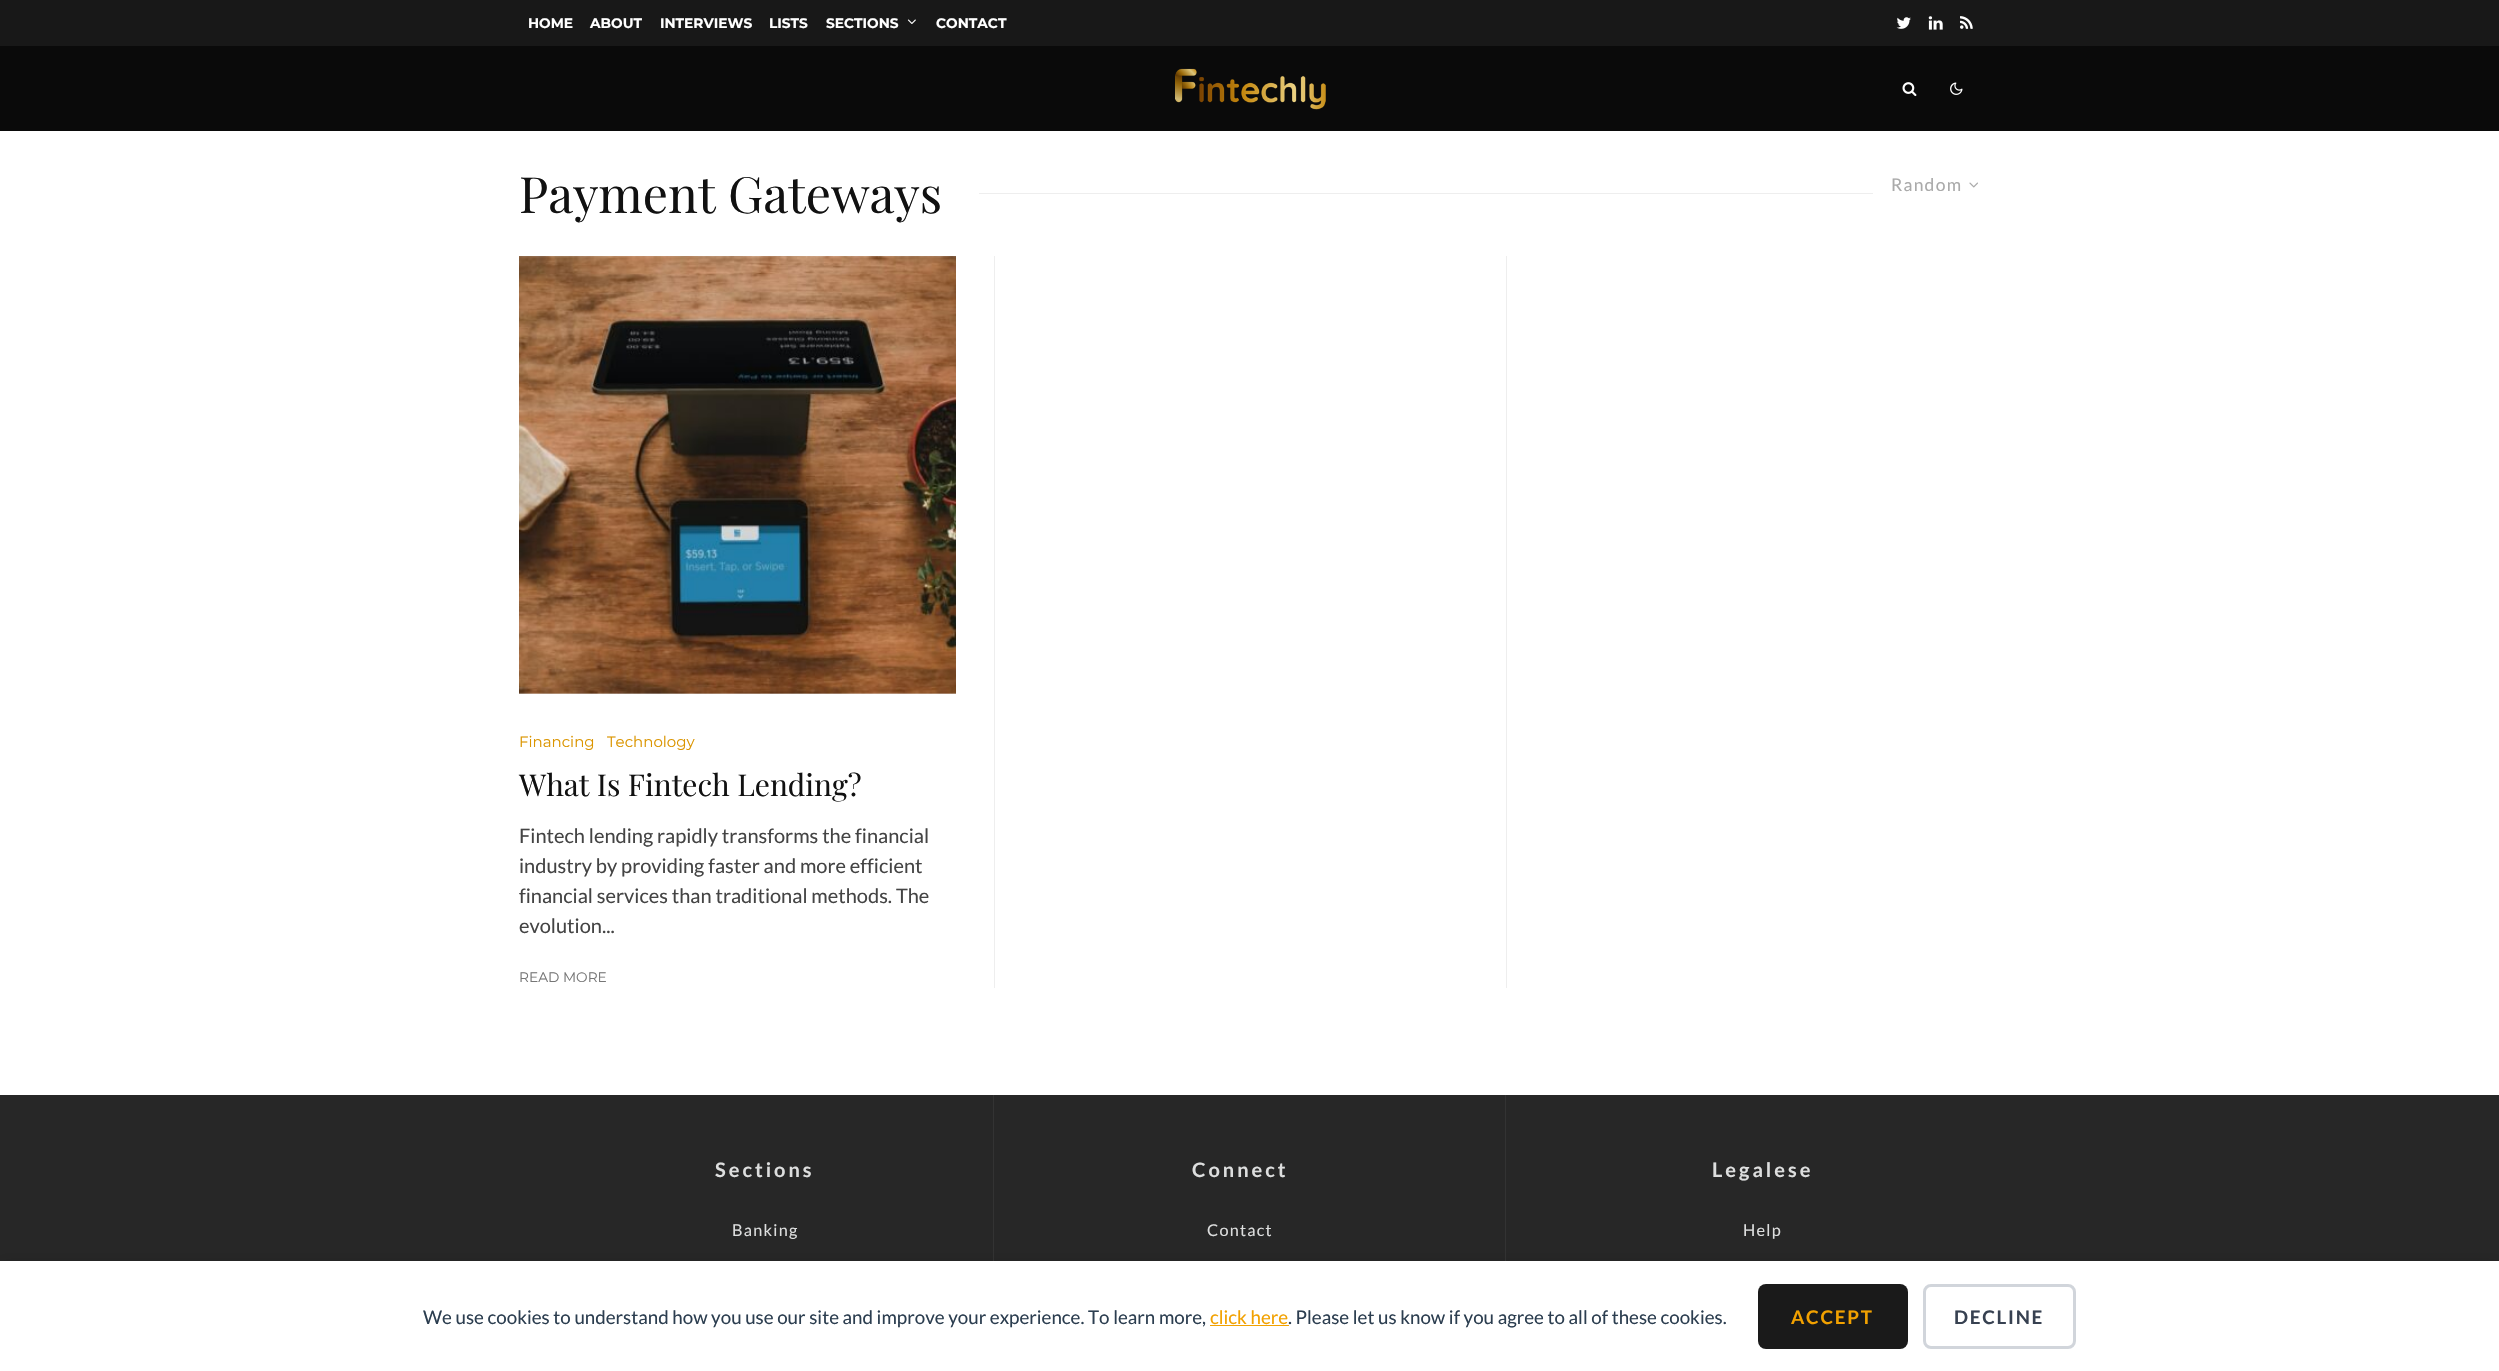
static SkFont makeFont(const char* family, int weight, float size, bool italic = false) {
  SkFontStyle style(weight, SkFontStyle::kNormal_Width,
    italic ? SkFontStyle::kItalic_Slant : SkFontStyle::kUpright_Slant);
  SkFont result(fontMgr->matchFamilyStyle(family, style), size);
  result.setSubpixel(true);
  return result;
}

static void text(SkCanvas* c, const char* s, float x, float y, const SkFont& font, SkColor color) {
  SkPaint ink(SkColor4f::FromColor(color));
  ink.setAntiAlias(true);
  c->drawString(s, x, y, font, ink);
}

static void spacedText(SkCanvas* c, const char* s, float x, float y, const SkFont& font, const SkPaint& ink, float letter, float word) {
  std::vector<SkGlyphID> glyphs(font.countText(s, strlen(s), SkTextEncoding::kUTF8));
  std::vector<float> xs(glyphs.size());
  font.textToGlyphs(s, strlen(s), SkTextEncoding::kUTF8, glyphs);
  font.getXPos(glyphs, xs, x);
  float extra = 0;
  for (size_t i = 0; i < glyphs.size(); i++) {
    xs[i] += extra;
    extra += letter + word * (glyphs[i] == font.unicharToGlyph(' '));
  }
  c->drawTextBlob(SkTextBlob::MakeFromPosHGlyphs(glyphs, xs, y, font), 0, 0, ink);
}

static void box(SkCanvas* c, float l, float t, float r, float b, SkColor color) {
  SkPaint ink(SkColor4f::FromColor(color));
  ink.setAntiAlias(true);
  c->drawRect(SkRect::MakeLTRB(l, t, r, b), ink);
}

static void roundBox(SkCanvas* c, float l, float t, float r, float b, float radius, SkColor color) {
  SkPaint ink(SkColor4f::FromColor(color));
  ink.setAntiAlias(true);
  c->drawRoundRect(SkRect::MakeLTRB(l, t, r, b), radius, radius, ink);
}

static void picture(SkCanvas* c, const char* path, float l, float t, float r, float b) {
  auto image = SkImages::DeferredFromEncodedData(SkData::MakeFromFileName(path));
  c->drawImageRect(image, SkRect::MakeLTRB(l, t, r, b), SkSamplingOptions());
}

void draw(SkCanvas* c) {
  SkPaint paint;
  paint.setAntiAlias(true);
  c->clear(0xffffffff);
  box(c, 0, 0, 2499, 46, 0xff181818);
  SkFont face1 = makeFont("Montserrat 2", 100, 13.75f);
  text(c, "HOME", 528, 28, face1, 0xffffffff);
  text(c, "ABOUT", 590, 28, face1, 0xffffffff);
  text(c, "INTERVIEWS", 660, 28, face1, 0xffffffff);
  text(c, "LISTS", 769, 28, face1, 0xffffffff);
  text(c, "SECTIONS", 826, 28, face1, 0xffffffff);
  picture(c, "img_01.png", 907, 19, 916, 24);
  text(c, "CONTACT", 936, 28, face1, 0xffffffff);
  picture(c, "img_02.png", 1896, 17, 1911, 29);
  picture(c, "img_03.png", 1928, 16, 1943, 30);
  picture(c, "img_04.png", 1960, 16, 1973, 29);
  box(c, 0, 46, 2499, 131, 0xff0a0a0a);
  picture(c, "img_05.png", 1175, 68, 1326, 110);
  picture(c, "img_06.png", 1902, 82, 1917, 97);
  picture(c, "img_07.png", 1950, 82, 1963, 95);
  SkFont face2 = makeFont("Playfair Display", 400, 50);
  text(c, "Payment Gateways", 519, 213, face2, 0xff111111);
  box(c, 979, 193, 1873, 194, 0xffeeeeee);
  SkFont face3 = makeFont("Lato", 400, 17.5f);
  paint.setColor(0xffaaaaaa);
  spacedText(c, "Random", 1891, 191, face3, paint, 1.25f, 0);
  picture(c, "img_08.png", 1969, 182, 1978, 188);
  box(c, 519, 256, 956, 694, 0xffeeeeee);
  picture(c, "img_09.png", 519, 256, 956, 694);
  SkFont face4 = makeFont("Montserrat", 100, 15);
  text(c, "Financing", 519, 747, face4, 0xffdb9500);
  text(c, "Technology", 607, 747, face4, 0xffdb9500);
  SkFont face5 = makeFont("Playfair Display", 400, 30);
  text(c, "What Is Fintech Lending?", 519, 796, face5, 0xff111111);
  SkFont face6 = makeFont("Lato", 400, 20);
  text(c, "Fintech lending rapidly transforms the financial", 519, 843, face6, 0xff444444);
  text(c, "industry by providing faster and more efficient", 519, 873, face6, 0xff444444);
  text(c, "financial services than traditional methods. The", 519, 903, face6, 0xff444444);
  text(c, "evolution...", 519, 933, face6, 0xff444444);
  SkFont face7 = makeFont("Montserrat", 100, 13.75f);
  text(c, "READ MORE", 519, 982, face7, 0xff767676);
  box(c, 994, 256, 995, 988, 0xffeeeeee);
  box(c, 1506, 256, 1507, 988, 0xffeeeeee);
  box(c, 0, 1095, 2499, 1261, 0xff272727);
  box(c, 993, 1095, 994, 1261, 0xff333333);
  SkFont face8 = makeFont("Lato", 700, 20);
  paint.setColor(0xffdddede);
  spacedText(c, "Sections", 715, 1177, face8, paint, 3, 0);
  SkFont face9 = makeFont("Lato", 400, 16.25f);
  spacedText(c, "Banking", 732, 1236, face9, paint, 1.25f, 0);
  box(c, 1505, 1095, 1506, 1261, 0xff333333);
  spacedText(c, "Connect", 1192, 1177, face8, paint, 3, 0);
  spacedText(c, "Contact", 1207, 1236, face9, paint, 1.25f, 0);
  spacedText(c, "Legalese", 1712, 1177, face8, paint, 3, 0);
  spacedText(c, "Help", 1743, 1236, face9, paint, 1.25f, 0);
  paint.setColor(0x14000000);
  paint.setMaskFilter(SkMaskFilter::MakeBlur(kNormal_SkBlurStyle, 6));
  c->drawRect(SkRect::MakeLTRB(0, 1259, 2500, 1369), paint);
  paint.setMaskFilter(nullptr);
  box(c, 0, 1261, 2499, 1371, 0xffffffff);
  SkFont face10 = makeFont("Lato", 400, 18.75f);
  text(c, "We use cookies to understand how you use our site and improve your experience. To learn more,", 423, 1324, face10, 0xff2c3e50);
  text(c, "click here", 1210, 1324, face10, 0xfff2a100);
  box(c, 1210, 1325, 1289, 1326, 0xfff2a100);
  text(c, ". Please let us know if you agree to all of these cookies.", 1288, 1324, face10, 0xff2c3e50);
  roundBox(c, 1758, 1284, 1908, 1349, 8, 0xff1a1a1a);
  SkFont face11 = makeFont("Lato", 700, 18.75f);
  paint.setColor(0xfff2a100);
  spacedText(c, "ACCEPT", 1791, 1324, face11, paint, 1.75f, 0);
  paint.setStyle(SkPaint::kStroke_Style);
  paint.setStrokeWidth(3);
  paint.setColor(0xffd1d5db);
  c->drawRoundRect(SkRect::MakeLTRB(1924.5f, 1285.5f, 2074.5f, 1347.5f), 6.5f, 6.5f, paint);
  paint.setStyle(SkPaint::kFill_Style);
  paint.setColor(0xff374151);
  spacedText(c, "DECLINE", 1954, 1324, face11, paint, 1.75f, 0);
}
